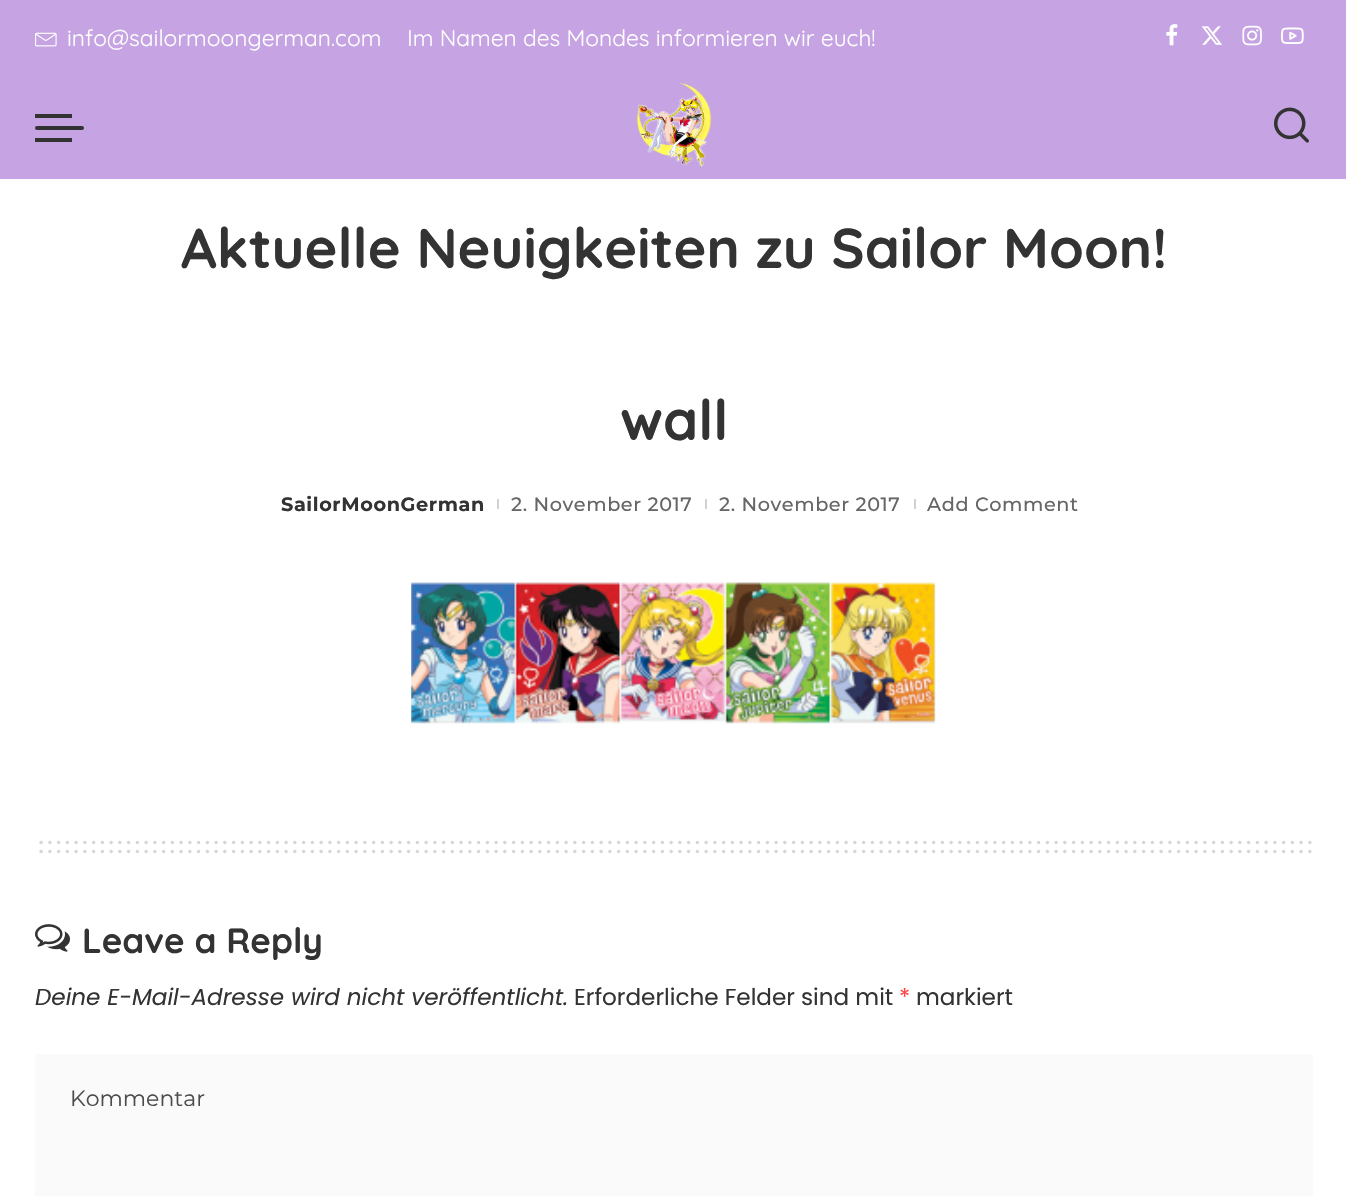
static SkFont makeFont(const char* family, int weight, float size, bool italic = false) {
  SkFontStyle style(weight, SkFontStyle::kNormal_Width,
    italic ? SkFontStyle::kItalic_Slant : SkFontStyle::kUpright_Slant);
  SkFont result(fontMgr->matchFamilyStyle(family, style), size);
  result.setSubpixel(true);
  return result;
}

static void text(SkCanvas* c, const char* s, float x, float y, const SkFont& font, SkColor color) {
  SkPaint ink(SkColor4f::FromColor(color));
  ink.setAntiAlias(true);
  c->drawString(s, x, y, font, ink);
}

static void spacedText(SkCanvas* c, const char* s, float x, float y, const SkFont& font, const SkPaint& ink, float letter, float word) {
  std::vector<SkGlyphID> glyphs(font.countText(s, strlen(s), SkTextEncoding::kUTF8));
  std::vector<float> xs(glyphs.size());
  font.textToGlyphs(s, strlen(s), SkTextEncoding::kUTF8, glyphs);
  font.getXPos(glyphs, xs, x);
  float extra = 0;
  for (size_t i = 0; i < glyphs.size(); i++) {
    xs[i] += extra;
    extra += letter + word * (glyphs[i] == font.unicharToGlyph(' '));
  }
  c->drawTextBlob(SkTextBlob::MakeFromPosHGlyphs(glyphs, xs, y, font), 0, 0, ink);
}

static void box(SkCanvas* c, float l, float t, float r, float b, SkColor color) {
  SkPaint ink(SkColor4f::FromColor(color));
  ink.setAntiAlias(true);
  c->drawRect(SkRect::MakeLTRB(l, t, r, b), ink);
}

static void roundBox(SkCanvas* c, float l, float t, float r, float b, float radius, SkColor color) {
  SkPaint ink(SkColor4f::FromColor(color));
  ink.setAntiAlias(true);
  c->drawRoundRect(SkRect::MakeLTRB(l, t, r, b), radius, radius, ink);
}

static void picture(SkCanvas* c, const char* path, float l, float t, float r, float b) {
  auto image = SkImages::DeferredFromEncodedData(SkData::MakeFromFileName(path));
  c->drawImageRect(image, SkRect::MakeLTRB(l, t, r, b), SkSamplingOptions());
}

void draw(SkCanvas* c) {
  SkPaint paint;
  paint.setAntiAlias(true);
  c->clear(0xffffffff);
  box(c, 0, 0, 1346, 179, 0xffc6a3e2);
  picture(c, "img_01.png", 35, 32, 57, 47);
  SkFont face1 = makeFont("Quicksand", 400, 22.75f);
  text(c, "info@sailormoongerman.com", 67, 46, face1, 0xffffffff);
  text(c, "Im Namen des Mondes informieren wir euch!", 407, 46, face1, 0xffffffff);
  picture(c, "img_02.png", 1166, 24, 1178, 46);
  picture(c, "img_03.png", 1201, 26, 1222, 45);
  picture(c, "img_04.png", 1242, 25, 1262, 46);
  picture(c, "img_05.png", 1281, 27, 1304, 44);
  roundBox(c, 35, 126, 84, 130, 2, 0xff333333);
  box(c, 35, 114, 72, 118, 0xff333333);
  box(c, 35, 138, 72, 142, 0xff333333);
  picture(c, "img_06.png", 636, 83, 712, 168);
  picture(c, "img_07.png", 1274, 107, 1309, 143);
  SkFont face2 = makeFont("Quicksand", 700, 56);
  text(c, "Aktuelle Neuigkeiten zu Sailor Moon!", 181, 268, face2, 0xff333333);
  text(c, "wall", 620, 440, face2, 0xff333333);
  SkFont face3 = makeFont("Montserrat", 700, 19.25f);
  paint.setColor(0xff333333);
  spacedText(c, "SailorMoonGerman", 281, 511, face3, paint, 0.6f, 0);
  box(c, 497, 499, 499, 509, 0xffd1d1d1);
  SkFont face4 = makeFont("Montserrat", 500, 19.25f);
  paint.setColor(0xff666666);
  spacedText(c, "2. November 2017", 511, 511, face4, paint, 0.6f, 0);
  box(c, 705, 499, 707, 509, 0xffd1d1d1);
  spacedText(c, "2. November 2017", 719, 511, face4, paint, 0.6f, 0);
  box(c, 914, 499, 916, 509, 0xffd1d1d1);
  spacedText(c, "Add Comment", 927, 511, face4, paint, 0.6f, 0);
  picture(c, "img_08.png", 411, 582, 936, 724);
  paint.setStyle(SkPaint::kStroke_Style);
  paint.setStrokeWidth(3.5f);
  paint.setStrokeCap(SkPaint::kRound_Cap);
  paint.setColor(0xffd6d6d6);
  paint.setPathEffect(SkDashPathEffect::Make({{0, 8.75f}}, 0));
  c->drawPath(SkPathBuilder().moveTo(41.1f, 842.6f).lineTo(1310.2f, 842.6f).detach(), paint);
  paint.setPathEffect(nullptr);
  paint.setPathEffect(SkDashPathEffect::Make({{0, 8.75f}}, 0));
  c->drawPath(SkPathBuilder().moveTo(41.1f, 851.4f).lineTo(1310.2f, 851.4f).detach(), paint);
  paint.setPathEffect(nullptr);
  picture(c, "img_09.png", 35, 924, 70, 952);
  SkFont face5 = makeFont("Quicksand", 700, 35);
  text(c, "Leave a Reply", 82, 953, face5, 0xff333333);
  SkFont face6 = makeFont("Poppins", 400, 23.1f, true);
  text(c, "Deine E-Mail-Adresse wird nicht veröffentlicht.", 35, 1005, face6, 0xff333333);
  SkFont face7 = makeFont("Poppins", 400, 23.1f);
  text(c, "Erforderliche Felder sind mit", 574, 1005, face7, 0xff333333);
  text(c, "*", 899, 1005, face7, 0xffff4545);
  text(c, "markiert", 916, 1005, face7, 0xff333333);
  box(c, 35, 1054, 1313, 1196, 0xfffafafa);
  SkFont face8 = makeFont("Montserrat", 400, 22);
  text(c, "Kommentar", 70, 1106, face8, 0xff4b4b4b);
}
